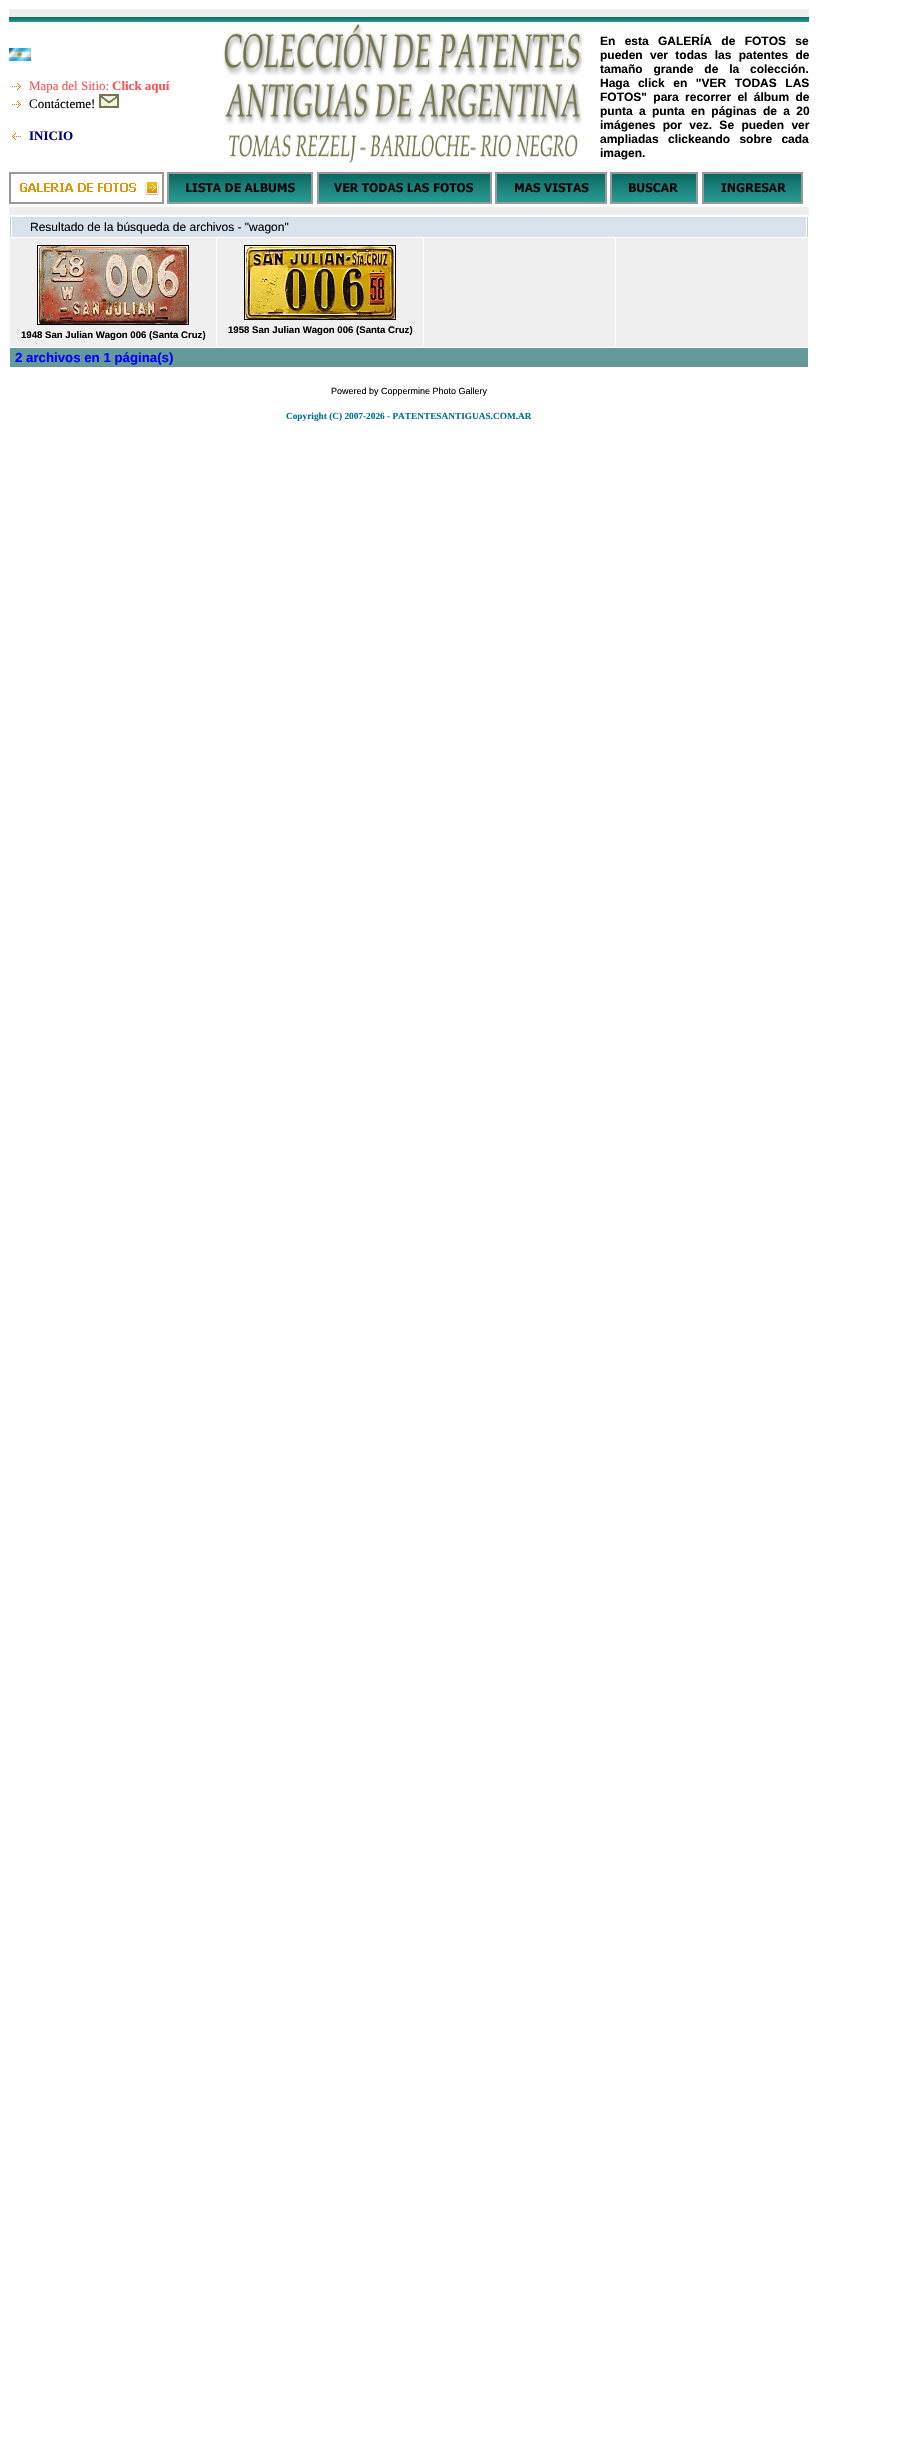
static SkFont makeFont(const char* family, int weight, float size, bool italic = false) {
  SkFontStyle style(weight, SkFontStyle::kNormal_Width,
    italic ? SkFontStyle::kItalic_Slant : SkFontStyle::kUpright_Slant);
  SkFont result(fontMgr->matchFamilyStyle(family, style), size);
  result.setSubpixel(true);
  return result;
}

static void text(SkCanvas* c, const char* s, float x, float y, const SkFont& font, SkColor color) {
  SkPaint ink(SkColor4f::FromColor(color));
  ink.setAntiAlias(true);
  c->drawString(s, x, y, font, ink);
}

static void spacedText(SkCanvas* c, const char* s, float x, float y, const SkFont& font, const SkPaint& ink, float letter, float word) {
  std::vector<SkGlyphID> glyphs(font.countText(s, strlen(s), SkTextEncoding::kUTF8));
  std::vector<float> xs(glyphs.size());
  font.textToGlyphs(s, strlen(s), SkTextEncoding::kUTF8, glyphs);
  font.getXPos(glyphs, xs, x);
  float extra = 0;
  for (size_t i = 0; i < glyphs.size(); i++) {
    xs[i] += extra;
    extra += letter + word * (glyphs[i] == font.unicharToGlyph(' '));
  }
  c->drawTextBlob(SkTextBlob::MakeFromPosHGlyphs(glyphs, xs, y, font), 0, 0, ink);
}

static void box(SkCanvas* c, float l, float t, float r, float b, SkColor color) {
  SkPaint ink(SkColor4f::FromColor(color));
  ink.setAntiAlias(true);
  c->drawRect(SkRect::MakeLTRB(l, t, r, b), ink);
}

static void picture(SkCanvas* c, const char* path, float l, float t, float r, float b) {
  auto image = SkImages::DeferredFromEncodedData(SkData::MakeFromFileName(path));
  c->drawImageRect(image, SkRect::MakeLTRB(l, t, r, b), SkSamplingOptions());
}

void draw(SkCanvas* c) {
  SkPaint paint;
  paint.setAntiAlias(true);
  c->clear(0xffffffff);
  box(c, 9, 9, 809, 17, 0xffeeeeee);
  picture(c, "img_01.png", 9, 17, 809, 22);
  picture(c, "img_02.png", 9, 48, 31, 61);
  picture(c, "img_03.png", 12, 83, 21, 90);
  SkFont face1 = makeFont("Liberation Serif", 400, 13);
  text(c, "Mapa del Sitio:", 29, 90, face1, 0xffff5050);
  SkFont face2 = makeFont("Liberation Serif", 700, 13);
  text(c, "Click aquí", 112, 90, face2, 0xffff5050);
  picture(c, "img_03.png", 12, 101, 21, 108);
  text(c, "Contácteme!", 29, 108, face1, 0xff000000);
  picture(c, "img_04.png", 99, 94, 119, 108);
  picture(c, "img_05.png", 12, 133, 21, 140);
  text(c, "INICIO", 29, 140, face2, 0xff000080);
  picture(c, "img_06.png", 223, 24, 583, 163);
  SkFont face3 = makeFont("Liberation Sans", 700, 12);
  paint.setColor(0xff000000);
  spacedText(c, "En esta GALERÍA de FOTOS se", 600, 45, face3, paint, 0, 6);
  spacedText(c, "pueden ver todas las patentes de", 600, 59, face3, paint, 0, 4);
  spacedText(c, "tamaño grande de la colección.", 600, 73, face3, paint, 0, 7.5f);
  spacedText(c, "Haga click en \"VER TODAS LAS", 600, 87, face3, paint, 0, 5.25f);
  spacedText(c, "FOTOS\" para recorrer el álbum de", 600, 101, face3, paint, 0, 3);
  spacedText(c, "punta a punta en páginas de a 20", 600, 115, face3, paint, 0, 3);
  spacedText(c, "imágenes por vez. Se pueden ver", 600, 129, face3, paint, 0, 4);
  spacedText(c, "ampliadas clickeando sobre cada", 600, 143, face3, paint, 0, 6);
  text(c, "imagen.", 600, 157, face3, 0xff000000);
  picture(c, "img_07.png", 9, 172, 164, 204);
  picture(c, "img_08.png", 167, 172, 313, 204);
  picture(c, "img_09.png", 317, 172, 492, 204);
  picture(c, "img_10.png", 495, 172, 607, 204);
  picture(c, "img_11.png", 610, 172, 698, 204);
  picture(c, "img_12.png", 702, 172, 803, 204);
  box(c, 9, 207, 809, 215, 0xffeeeeee);
  picture(c, "img_13.png", 10, 217, 804, 237);
  picture(c, "img_14.png", 804, 217, 808, 237);
  SkFont face4 = makeFont("Liberation Sans", 400, 12);
  text(c, "Resultado de la búsqueda de archivos - \"wagon\"", 30, 231, face4, 0xff000000);
  box(c, 10, 238, 216, 347, 0xffefefef);
  paint.setStyle(SkPaint::kStroke_Style);
  paint.setStrokeWidth(1);
  c->drawRect(SkRect::MakeLTRB(37.5f, 245.5f, 188.5f, 324.5f), paint);
  picture(c, "img_15.png", 38, 246, 188, 324);
  SkFont face5 = makeFont("Liberation Sans", 700, 9.6f);
  text(c, "1948 San Julian Wagon 006 (Santa Cruz)", 21, 338, face5, 0xff000000);
  box(c, 217, 238, 423, 347, 0xffefefef);
  c->drawRect(SkRect::MakeLTRB(244.5f, 245.5f, 395.5f, 319.5f), paint);
  picture(c, "img_16.png", 245, 246, 395, 319);
  text(c, "1958 San Julian Wagon 006 (Santa Cruz)", 228, 333, face5, 0xff000000);
  box(c, 424, 238, 615, 347, 0xffefefef);
  box(c, 616, 238, 808, 347, 0xffefefef);
  box(c, 10, 348, 808, 367, 0xff669999);
  SkFont face6 = makeFont("Liberation Sans", 700, 13.25f);
  text(c, "2 archivos en 1 página(s)", 15, 362, face6, 0xff0000ff);
  SkFont face7 = makeFont("Liberation Sans", 400, 9);
  text(c, "Powered by Coppermine Photo Gallery", 331, 394, face7, 0xff000000);
  SkFont face8 = makeFont("Liberation Serif", 700, 9.3f);
  text(c, "Copyright (C) 2007-2026 - PATENTESANTIGUAS.COM.AR", 286, 419, face8, 0xff006f92);
}
